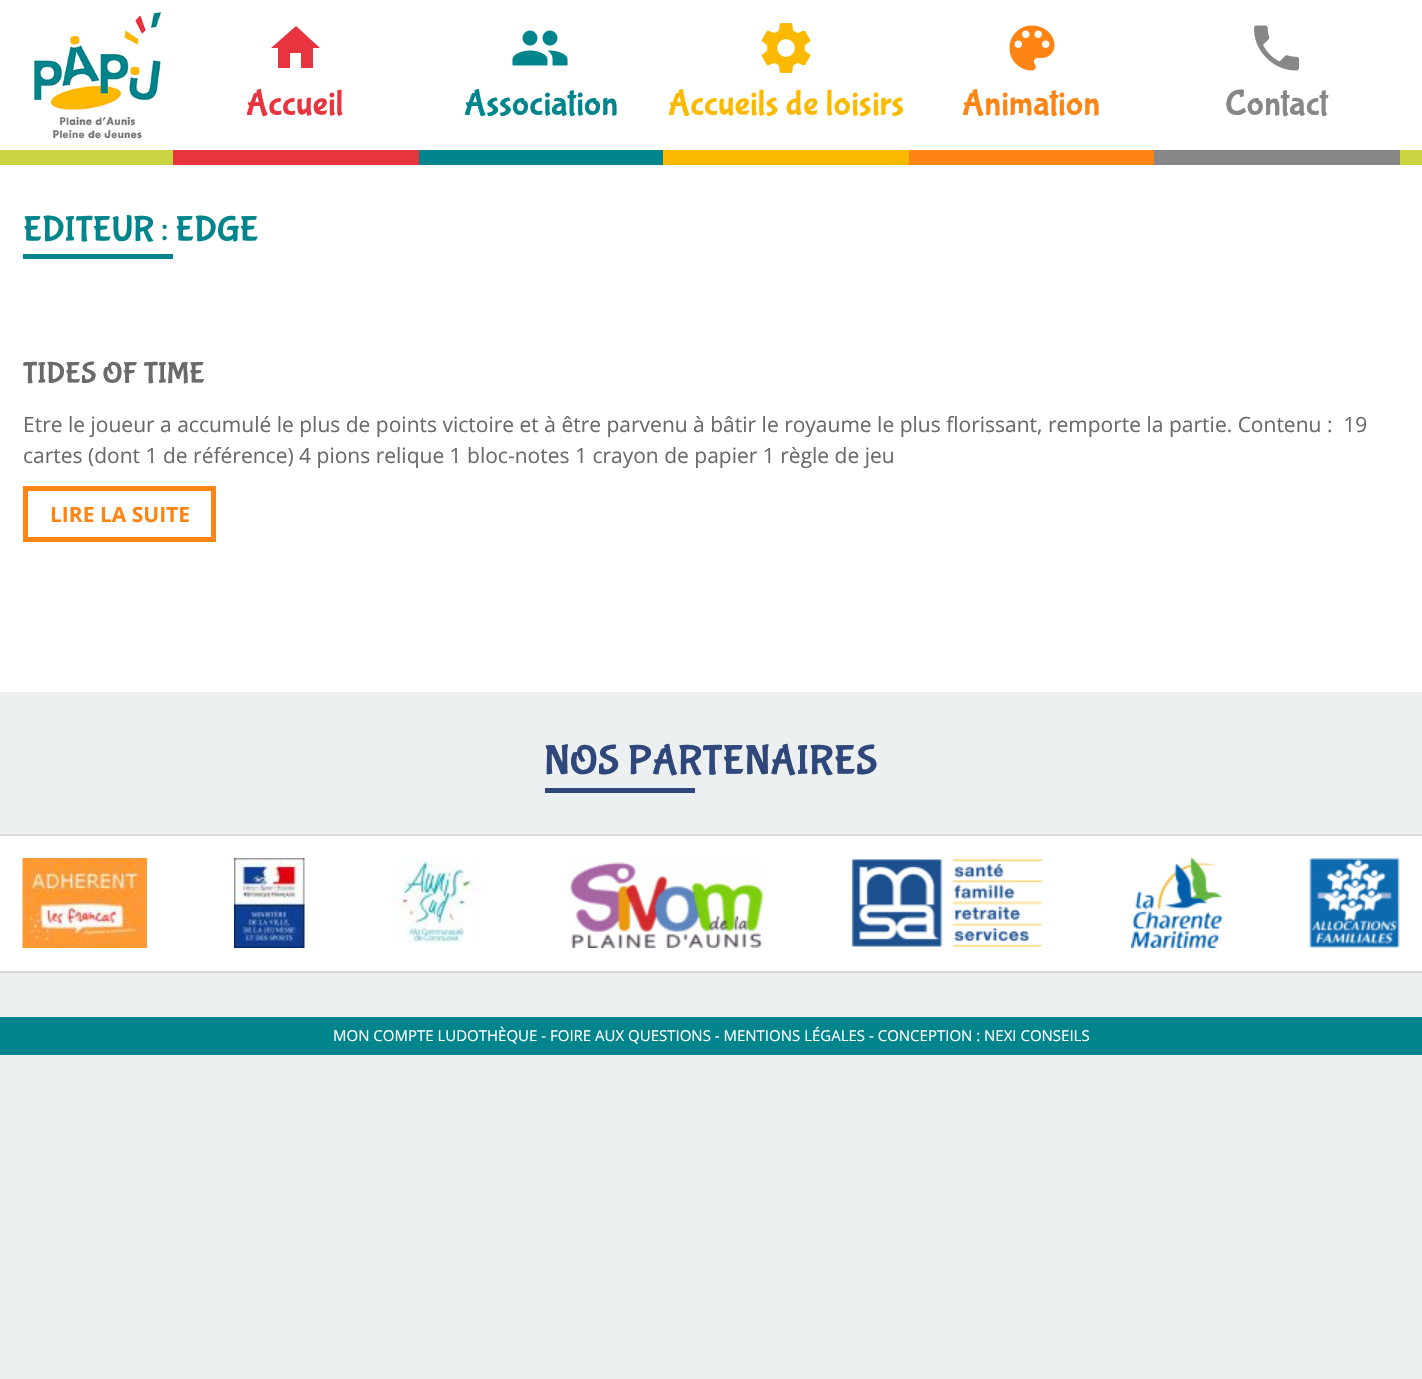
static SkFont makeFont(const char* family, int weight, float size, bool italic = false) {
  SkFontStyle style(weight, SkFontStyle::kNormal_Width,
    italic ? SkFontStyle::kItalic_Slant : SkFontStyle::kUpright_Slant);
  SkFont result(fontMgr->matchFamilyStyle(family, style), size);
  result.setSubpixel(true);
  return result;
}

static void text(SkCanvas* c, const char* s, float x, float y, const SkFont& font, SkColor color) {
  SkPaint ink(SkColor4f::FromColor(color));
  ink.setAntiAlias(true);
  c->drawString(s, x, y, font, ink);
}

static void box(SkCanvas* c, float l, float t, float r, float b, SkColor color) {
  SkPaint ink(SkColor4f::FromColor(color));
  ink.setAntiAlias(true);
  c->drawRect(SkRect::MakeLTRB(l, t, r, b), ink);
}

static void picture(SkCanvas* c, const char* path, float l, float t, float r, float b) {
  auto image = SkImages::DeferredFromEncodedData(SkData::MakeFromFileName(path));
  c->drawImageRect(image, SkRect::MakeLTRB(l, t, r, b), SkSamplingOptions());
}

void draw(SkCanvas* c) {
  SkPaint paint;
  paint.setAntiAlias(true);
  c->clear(0xffecf0f1);
  box(c, 0, 0, 1422, 150, 0xffffffff);
  box(c, 0, 150, 1422, 165, 0xffcad440);
  picture(c, "img_01.png", 33, 12, 162, 139);
  paint.setColor(0xffe7343f);
  c->drawPath(SkPathBuilder().moveTo(290, 68).lineTo(278, 68).lineTo(278, 48).lineTo(271, 48).lineTo(296, 26).lineTo(320, 48).lineTo(313, 48).lineTo(313, 68).lineTo(301, 68).lineTo(301, 53).lineTo(290, 53).close().detach(), paint);
  SkFont face1 = makeFont("Bubblegum Sans", 400, 36);
  text(c, "Accueil", 246, 114, face1, 0xffe7343f);
  box(c, 173, 150, 419, 165, 0xffe7343f);
  picture(c, "img_02.png", 512, 30, 568, 66);
  text(c, "Association", 464, 114, face1, 0xff00858c);
  box(c, 419, 150, 663, 165, 0xff00858c);
  picture(c, "img_03.png", 761, 23, 811, 73);
  text(c, "Accueils de loisirs", 668, 114, face1, 0xfffbba00);
  box(c, 663, 150, 909, 165, 0xfffbba00);
  picture(c, "img_04.png", 1009, 25, 1055, 71);
  text(c, "Animation", 962, 114, face1, 0xfffe8514);
  box(c, 909, 150, 1154, 165, 0xfffe8514);
  picture(c, "img_05.png", 1254, 25, 1299, 71);
  text(c, "Contact", 1225, 114, face1, 0xff878787);
  box(c, 1154, 150, 1400, 165, 0xff878787);
  box(c, 0, 165, 1422, 692, 0xffffffff);
  text(c, "EDITEUR : EDGE", 23, 240, face1, 0xff00858c);
  box(c, 23, 254, 173, 259, 0xff00858c);
  SkFont face2 = makeFont("Bubblegum Sans", 400, 30);
  text(c, "TIDES OF TIME", 23, 382, face2, 0xff6a6a6a);
  SkFont face3 = makeFont("Open Sans", 400, 21);
  text(c, "Etre le joueur a accumulé le plus de points victoire et à être parvenu à bâtir le royaume le plus florissant, remporte la partie. Contenu :  19", 23, 432, face3, 0xff6a6a6a);
  text(c, "cartes (dont 1 de référence) 4 pions relique 1 bloc-notes 1 crayon de papier 1 règle de jeu", 23, 463, face3, 0xff6a6a6a);
  paint.setStyle(SkPaint::kStroke_Style);
  paint.setStrokeWidth(5);
  paint.setColor(0xfffe8514);
  c->drawRect(SkRect::MakeLTRB(25.5f, 488.5f, 213.5f, 539.5f), paint);
  SkFont face4 = makeFont("Open Sans", 700, 21);
  text(c, "LIRE LA SUITE", 50, 522, face4, 0xfffe8514);
  SkFont face5 = makeFont("Bubblegum Sans", 400, 42);
  text(c, "NOS PARTENAIRES", 544, 773, face5, 0xff2f477a);
  box(c, 545, 788, 695, 793, 0xff2f477a);
  box(c, 0, 836, 1422, 971, 0xffffffff);
  box(c, 0, 834, 1422, 836, 0xffd9d9d9);
  box(c, 0, 971, 1422, 973, 0xffd9d9d9);
  picture(c, "img_06.png", 22, 858, 147, 948);
  picture(c, "img_07.png", 234, 858, 305, 948);
  picture(c, "img_08.png", 391, 858, 481, 944);
  picture(c, "img_09.png", 569, 862, 764, 948);
  picture(c, "img_10.png", 851, 859, 1043, 947);
  picture(c, "img_11.png", 1131, 858, 1223, 948);
  picture(c, "img_12.png", 1309, 858, 1400, 948);
  box(c, 0, 1017, 1422, 1055, 0xff00858c);
  SkFont face6 = makeFont("Open Sans", 400, 15);
  text(c, "MON COMPTE LUDOTHÈQUE - FOIRE AUX QUESTIONS - MENTIONS LÉGALES - CONCEPTION : NEXI CONSEILS", 333, 1041, face6, 0xffffffff);
}
